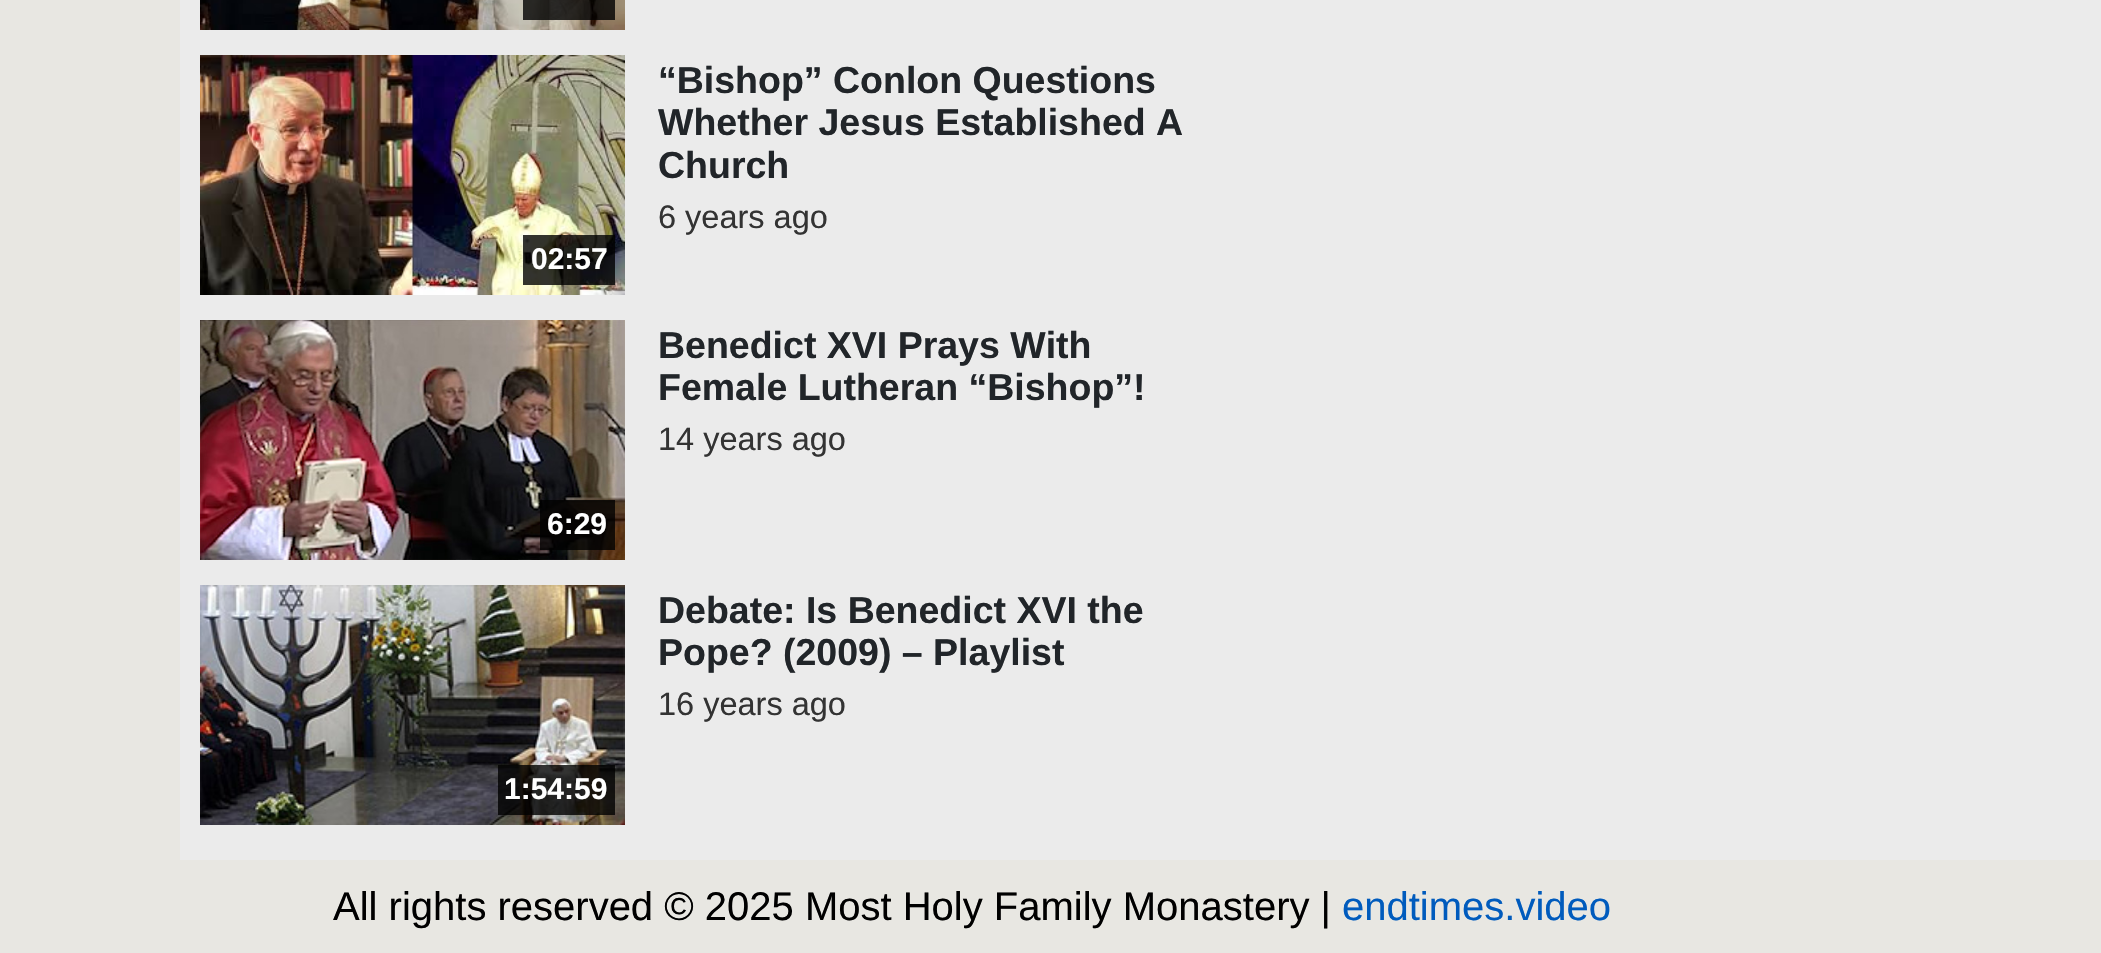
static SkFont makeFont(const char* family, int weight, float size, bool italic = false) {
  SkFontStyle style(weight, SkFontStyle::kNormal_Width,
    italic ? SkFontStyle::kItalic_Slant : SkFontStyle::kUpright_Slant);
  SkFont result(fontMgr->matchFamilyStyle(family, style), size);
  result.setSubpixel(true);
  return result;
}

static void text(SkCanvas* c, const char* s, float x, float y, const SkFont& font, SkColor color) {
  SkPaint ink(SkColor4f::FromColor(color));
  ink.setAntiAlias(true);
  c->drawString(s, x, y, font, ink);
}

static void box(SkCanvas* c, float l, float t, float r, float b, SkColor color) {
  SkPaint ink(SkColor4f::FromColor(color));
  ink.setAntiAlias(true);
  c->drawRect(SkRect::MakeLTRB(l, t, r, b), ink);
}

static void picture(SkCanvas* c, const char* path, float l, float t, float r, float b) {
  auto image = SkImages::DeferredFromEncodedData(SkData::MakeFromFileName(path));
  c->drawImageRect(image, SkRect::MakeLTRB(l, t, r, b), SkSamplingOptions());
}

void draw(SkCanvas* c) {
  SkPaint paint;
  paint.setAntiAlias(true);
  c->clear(0xffe8e7e2);
  box(c, 180, 0, 2101, 860, 0xffebebeb);
  picture(c, "img_01.png", 200, 0, 625, 30);
  box(c, 523, 0, 615, 20, 0xcc000000);
  SkFont face1 = makeFont("Liberation Sans", 700, 37.5f);
  text(c, "“Bishop” Conlon Questions", 658, 93, face1, 0xff212529);
  text(c, "Whether Jesus Established A", 658, 135, face1, 0xff212529);
  text(c, "Church", 658, 178, face1, 0xff212529);
  SkFont face2 = makeFont("Liberation Sans", 400, 32.5f);
  text(c, "6 years ago", 658, 228, face2, 0xff333333);
  picture(c, "img_02.png", 200, 55, 625, 295);
  box(c, 523, 235, 615, 285, 0xcc000000);
  SkFont face3 = makeFont("Liberation Sans", 700, 30);
  text(c, "02:57", 531, 269, face3, 0xffffffff);
  text(c, "Benedict XVI Prays With", 658, 358, face1, 0xff212529);
  text(c, "Female Lutheran “Bishop”!", 658, 400, face1, 0xff212529);
  text(c, "14 years ago", 658, 450, face2, 0xff333333);
  picture(c, "img_03.png", 200, 320, 625, 560);
  box(c, 540, 500, 615, 550, 0xcc000000);
  text(c, "6:29", 547, 534, face3, 0xffffffff);
  text(c, "Debate: Is Benedict XVI the", 658, 623, face1, 0xff212529);
  text(c, "Pope? (2009) – Playlist", 658, 665, face1, 0xff212529);
  text(c, "16 years ago", 658, 715, face2, 0xff333333);
  picture(c, "img_04.png", 200, 585, 625, 825);
  box(c, 498, 765, 615, 815, 0xcc000000);
  text(c, "1:54:59", 504, 799, face3, 0xffffffff);
  SkFont face4 = makeFont("Liberation Sans", 400, 40);
  text(c, "All rights reserved © 2025 Most Holy Family Monastery |", 333, 920, face4, 0xff000000);
  text(c, "endtimes.video", 1342, 920, face4, 0xff005bbd);
}
